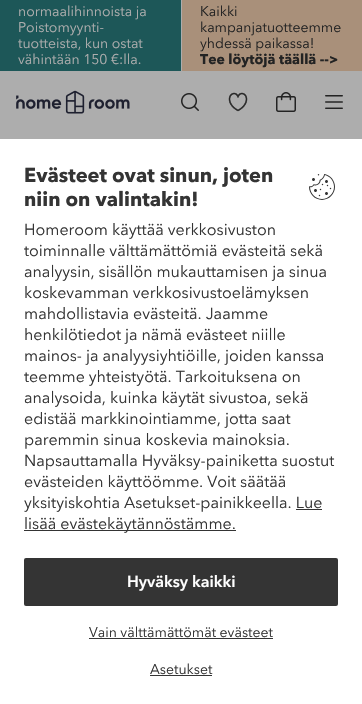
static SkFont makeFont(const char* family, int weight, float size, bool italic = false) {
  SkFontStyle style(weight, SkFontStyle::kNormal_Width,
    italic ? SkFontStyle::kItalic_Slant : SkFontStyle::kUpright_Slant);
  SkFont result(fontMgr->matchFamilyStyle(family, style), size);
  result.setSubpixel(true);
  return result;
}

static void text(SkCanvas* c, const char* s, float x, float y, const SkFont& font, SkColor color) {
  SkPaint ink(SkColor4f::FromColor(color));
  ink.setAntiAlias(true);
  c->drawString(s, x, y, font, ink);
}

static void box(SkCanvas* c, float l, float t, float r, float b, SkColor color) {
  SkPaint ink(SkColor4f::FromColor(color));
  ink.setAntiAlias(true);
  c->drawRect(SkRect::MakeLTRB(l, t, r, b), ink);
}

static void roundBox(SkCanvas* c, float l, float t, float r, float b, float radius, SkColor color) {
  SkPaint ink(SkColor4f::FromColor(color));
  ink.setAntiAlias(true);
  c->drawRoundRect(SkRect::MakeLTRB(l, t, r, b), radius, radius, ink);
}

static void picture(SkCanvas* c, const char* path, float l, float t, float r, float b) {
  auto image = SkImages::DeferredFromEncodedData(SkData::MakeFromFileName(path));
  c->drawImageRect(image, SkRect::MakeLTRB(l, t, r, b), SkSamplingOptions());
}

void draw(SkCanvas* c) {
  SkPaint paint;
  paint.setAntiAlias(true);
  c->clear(0xffadadad);
  box(c, 0, 0, 181, 71, 0xff1d5758);
  SkFont face1 = makeFont("Avenir", 400, 14);
  text(c, "normaalihinnoista ja", 18, 16, face1, 0xffadadad);
  text(c, "Poistomyynti-", 18, 32, face1, 0xffadadad);
  text(c, "tuotteista, kun ostat", 18, 48, face1, 0xffadadad);
  text(c, "vähintään 150 €:lla.", 18, 64, face1, 0xffadadad);
  box(c, 182, 0, 362, 71, 0xffa9907a);
  text(c, "Kaikki", 200, 16, face1, 0xff232323);
  text(c, "kampanjatuotteemme", 200, 32, face1, 0xff232323);
  text(c, "yhdessä paikassa!", 200, 48, face1, 0xff232323);
  SkFont face2 = makeFont("Avenir", 700, 14);
  text(c, "Tee löytöjä täällä -->", 200, 64, face2, 0xff232323);
  picture(c, "img_01.png", 16, 90, 130, 114);
  picture(c, "img_02.png", 181, 93, 199, 111);
  picture(c, "img_03.png", 228, 92, 248, 112);
  picture(c, "img_04.png", 276, 92, 296, 112);
  picture(c, "img_05.png", 325, 95, 343, 109);
  box(c, 0, 139, 362, 704, 0xffffffff);
  SkFont face3 = makeFont("Avenir", 700, 20);
  text(c, "Evästeet ovat sinun, joten", 24, 182, face3, 0xff343434);
  text(c, "niin on valintakin!", 24, 206, face3, 0xff343434);
  picture(c, "img_06.png", 309, 174, 335, 200);
  SkFont face4 = makeFont("Avenir", 400, 16);
  text(c, "Homeroom käyttää verkkosivuston", 24, 235, face4, 0xff343434);
  text(c, "toiminnalle välttämättömiä evästeitä sekä", 24, 256, face4, 0xff343434);
  text(c, "analyysin, sisällön mukauttamisen ja sinua", 24, 277, face4, 0xff343434);
  text(c, "koskevamman verkkosivustoelämyksen", 24, 298, face4, 0xff343434);
  text(c, "mahdollistavia evästeitä. Jaamme", 24, 319, face4, 0xff343434);
  text(c, "henkilötiedot ja nämä evästeet niille", 24, 340, face4, 0xff343434);
  text(c, "mainos- ja analyysiyhtiöille, joiden kanssa", 24, 361, face4, 0xff343434);
  text(c, "teemme yhteistyötä. Tarkoituksena on", 24, 382, face4, 0xff343434);
  text(c, "analysoida, kuinka käytät sivustoa, sekä", 24, 403, face4, 0xff343434);
  text(c, "edistää markkinointiamme, jotta saat", 24, 424, face4, 0xff343434);
  text(c, "paremmin sinua koskevia mainoksia.", 24, 445, face4, 0xff343434);
  text(c, "Napsauttamalla Hyväksy-painiketta suostut", 24, 466, face4, 0xff343434);
  text(c, "evästeiden käyttöömme. Voit säätää", 24, 487, face4, 0xff343434);
  text(c, "yksityiskohtia Asetukset-painikkeella. Lue", 24, 508, face4, 0xff343434);
  box(c, 24, 530, 236, 531, 0xff343434);
  text(c, "lisää evästekäytännöstämme.", 24, 529, face4, 0xff343434);
  box(c, 296, 509, 322, 510, 0xff343434);
  roundBox(c, 24, 558, 338, 606, 2, 0xff343434);
  SkFont face5 = makeFont("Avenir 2", 700, 16);
  text(c, "Hyväksy kaikki", 127, 587, face5, 0xffffffff);
  text(c, "Vain välttämättömät evästeet", 89, 637, face1, 0xff343434);
  box(c, 89, 638, 273, 639, 0xff343434);
  text(c, "Asetukset", 150, 674, face1, 0xff343434);
  box(c, 150, 675, 212, 676, 0xff343434);
}
